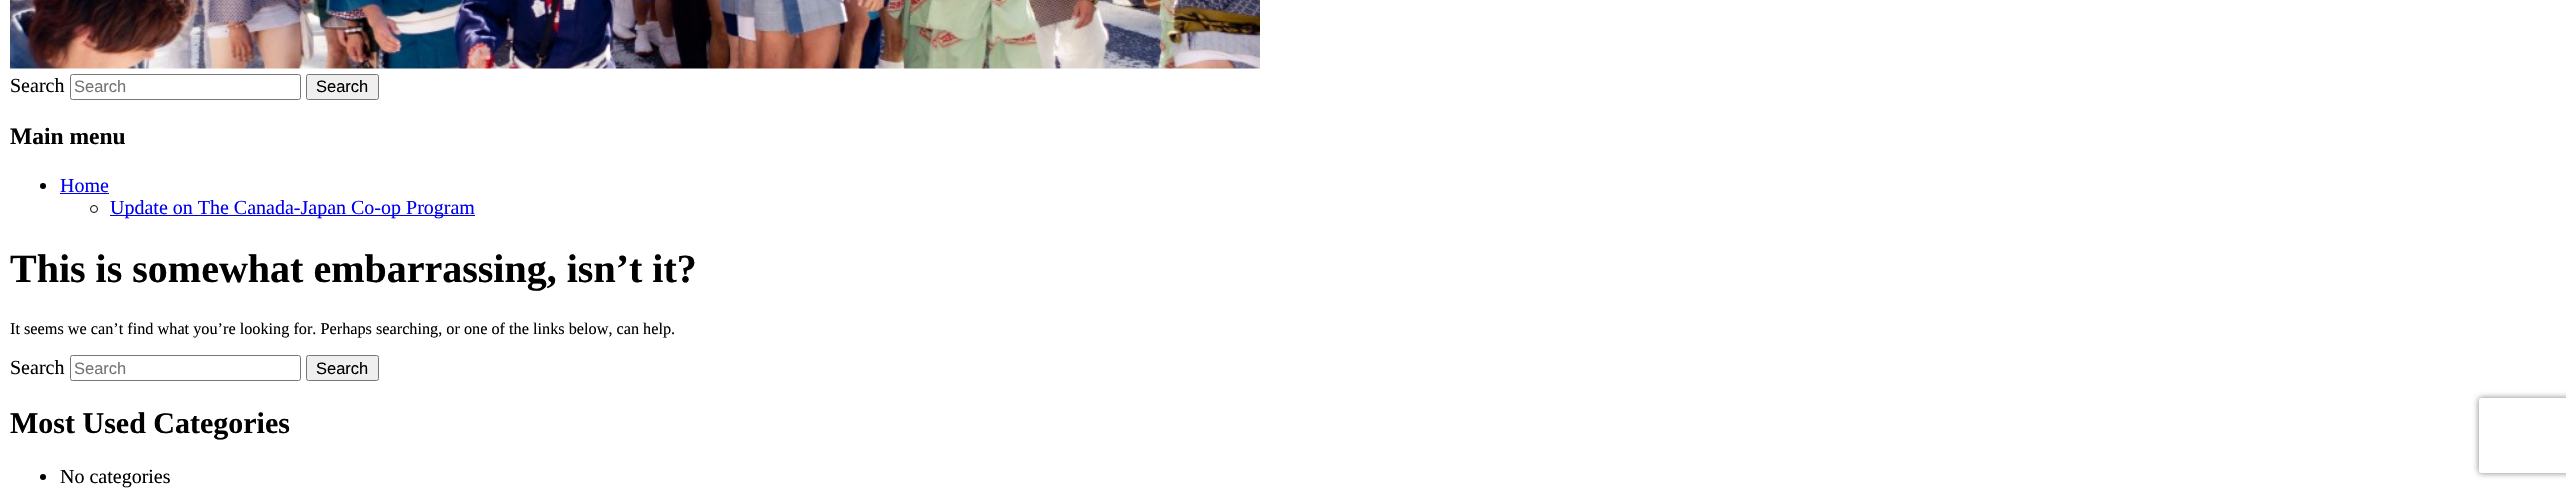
static SkFont makeFont(const char* family, int weight, float size, bool italic = false) {
  SkFontStyle style(weight, SkFontStyle::kNormal_Width,
    italic ? SkFontStyle::kItalic_Slant : SkFontStyle::kUpright_Slant);
  SkFont result(fontMgr->matchFamilyStyle(family, style), size);
  result.setSubpixel(true);
  return result;
}

static void text(SkCanvas* c, const char* s, float x, float y, const SkFont& font, SkColor color) {
  SkPaint ink(SkColor4f::FromColor(color));
  ink.setAntiAlias(true);
  c->drawString(s, x, y, font, ink);
}

static void box(SkCanvas* c, float l, float t, float r, float b, SkColor color) {
  SkPaint ink(SkColor4f::FromColor(color));
  ink.setAntiAlias(true);
  c->drawRect(SkRect::MakeLTRB(l, t, r, b), ink);
}

static void picture(SkCanvas* c, const char* path, float l, float t, float r, float b) {
  auto image = SkImages::DeferredFromEncodedData(SkData::MakeFromFileName(path));
  c->drawImageRect(image, SkRect::MakeLTRB(l, t, r, b), SkSamplingOptions());
}

void draw(SkCanvas* c) {
  SkPaint paint;
  paint.setAntiAlias(true);
  c->clear(0xffffffff);
  picture(c, "img_01.png", 10, 0, 1260, 69);
  SkFont face1 = makeFont("Liberation Serif", 400, 20);
  text(c, "Search", 10, 92, face1, 0xff000000);
  paint.setStyle(SkPaint::kStroke_Style);
  paint.setStrokeWidth(1);
  paint.setColor(0xff767676);
  c->drawRoundRect(SkRect::MakeLTRB(70.5f, 74.5f, 300.5f, 99.5f), 2, 2, paint);
  SkFont face2 = makeFont("Liberation Sans", 400, 16.5f);
  text(c, "Search", 74, 92, face2, 0xff757575);
  paint.setStyle(SkPaint::kFill_Style);
  paint.setColor(0xffefefef);
  c->drawRoundRect(SkRect::MakeLTRB(306.5f, 74.5f, 378.5f, 99.5f), 2, 2, paint);
  paint.setStyle(SkPaint::kStroke_Style);
  paint.setColor(0xff767676);
  c->drawRoundRect(SkRect::MakeLTRB(306.5f, 74.5f, 378.5f, 99.5f), 2, 2, paint);
  text(c, "Search", 316, 92, face2, 0xff000000);
  SkFont face3 = makeFont("Liberation Serif", 700, 23.5f);
  text(c, "Main menu", 10, 144, face3, 0xff000000);
  paint.setStyle(SkPaint::kFill_Style);
  paint.setColor(0xff000000);
  c->drawCircle(43, 186, 3, paint);
  text(c, "Home", 60, 192, face1, 0xff0000ee);
  box(c, 60, 193, 109, 194, 0xff0000ee);
  paint.setStyle(SkPaint::kStroke_Style);
  c->drawCircle(94, 209, 3.5f, paint);
  box(c, 110, 215, 475, 216, 0xff0000ee);
  text(c, "Update on The Canada-Japan Co-op Program", 110, 214, face1, 0xff0000ee);
  SkFont face4 = makeFont("Liberation Serif", 700, 40);
  text(c, "This is somewhat embarrassing, isn’t it?", 10, 282, face4, 0xff000000);
  SkFont face5 = makeFont("Liberation Serif", 400, 16.25f);
  text(c, "It seems we can’t find what you’re looking for. Perhaps searching, or one of the links below, can help.", 10, 334, face5, 0xff000000);
  text(c, "Search", 10, 374, face1, 0xff000000);
  paint.setColor(0xff767676);
  c->drawRoundRect(SkRect::MakeLTRB(70.5f, 355.5f, 300.5f, 380.5f), 2, 2, paint);
  text(c, "Search", 74, 374, face2, 0xff757575);
  paint.setStyle(SkPaint::kFill_Style);
  paint.setColor(0xffefefef);
  c->drawRoundRect(SkRect::MakeLTRB(306.5f, 355.5f, 378.5f, 380.5f), 2, 2, paint);
  paint.setStyle(SkPaint::kStroke_Style);
  paint.setColor(0xff767676);
  c->drawRoundRect(SkRect::MakeLTRB(306.5f, 355.5f, 378.5f, 380.5f), 2, 2, paint);
  text(c, "Search", 316, 374, face2, 0xff000000);
  SkFont face6 = makeFont("Liberation Serif", 700, 30);
  text(c, "Most Used Categories", 10, 433, face6, 0xff000000);
  paint.setStyle(SkPaint::kFill_Style);
  paint.setColor(0xff000000);
  c->drawCircle(43, 477, 3, paint);
  text(c, "No categories", 60, 483, face1, 0xff000000);
  c->save();
  c->clipPath(SkPathBuilder(SkPathFillType::kEvenOdd).moveTo(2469, 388).lineTo(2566, 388).lineTo(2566, 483).lineTo(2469, 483).close().moveTo(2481.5f, 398).lineTo(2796.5f, 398).cubicTo(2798, 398, 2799, 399, 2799, 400.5f).lineTo(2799, 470.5f).cubicTo(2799, 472, 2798, 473, 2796.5f, 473).lineTo(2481.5f, 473).cubicTo(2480, 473, 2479, 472, 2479, 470.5f).lineTo(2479, 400.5f).cubicTo(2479, 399, 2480, 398, 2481.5f, 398).close().detach(), true);
  paint.setColor(0xff808080);
  paint.setMaskFilter(SkMaskFilter::MakeBlur(kNormal_SkBlurStyle, 3));
  c->drawRoundRect(SkRect::MakeLTRB(2479, 398, 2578, 473), 2.5f, 2.5f, paint);
  paint.setMaskFilter(nullptr);
  c->restore();
}
